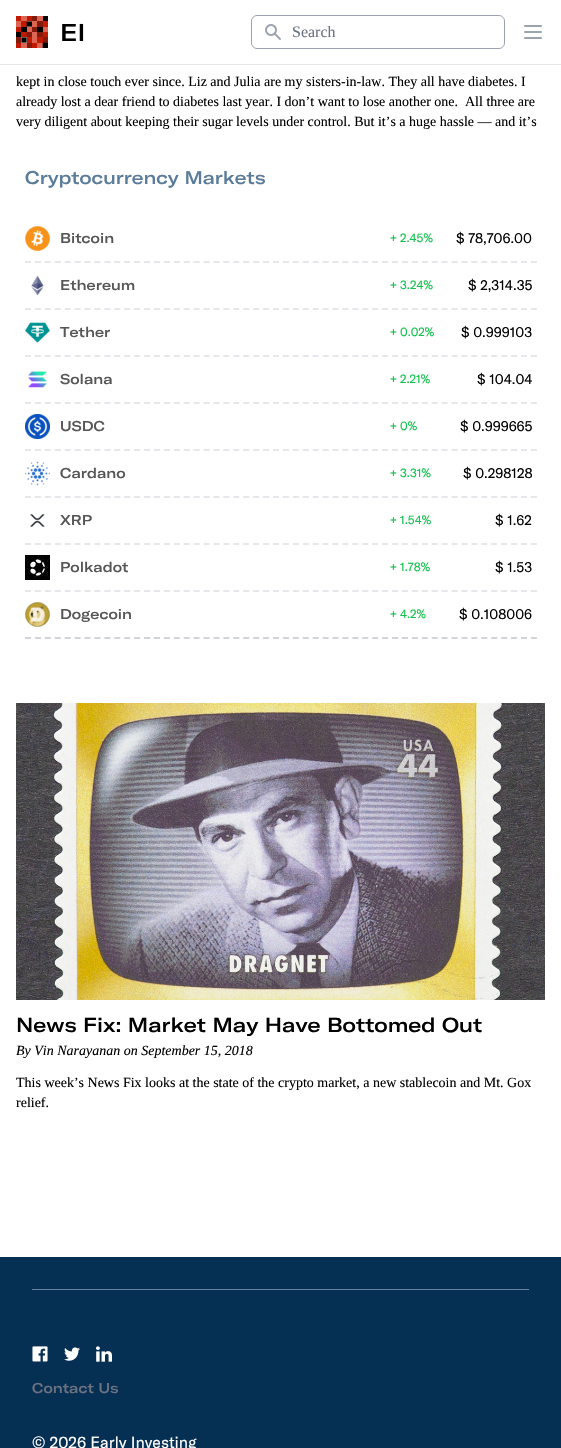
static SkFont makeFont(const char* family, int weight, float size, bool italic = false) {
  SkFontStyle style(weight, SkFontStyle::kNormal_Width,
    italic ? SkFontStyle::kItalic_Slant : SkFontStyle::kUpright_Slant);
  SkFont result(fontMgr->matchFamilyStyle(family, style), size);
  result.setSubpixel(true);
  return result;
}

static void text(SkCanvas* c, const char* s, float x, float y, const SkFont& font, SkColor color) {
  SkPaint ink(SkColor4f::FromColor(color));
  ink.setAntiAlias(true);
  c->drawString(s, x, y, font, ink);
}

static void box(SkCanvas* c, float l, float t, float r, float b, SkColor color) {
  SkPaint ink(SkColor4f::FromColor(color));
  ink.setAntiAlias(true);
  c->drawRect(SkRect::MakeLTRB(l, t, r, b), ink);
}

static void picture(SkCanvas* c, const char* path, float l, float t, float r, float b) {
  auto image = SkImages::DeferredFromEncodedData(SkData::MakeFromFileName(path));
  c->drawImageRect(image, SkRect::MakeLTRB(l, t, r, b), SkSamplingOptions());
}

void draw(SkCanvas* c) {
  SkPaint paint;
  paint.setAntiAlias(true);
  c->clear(0xff062f54);
  box(c, 0, 0, 561, 64, 0xffffffff);
  box(c, 0, 64, 561, 65, 0xffe5e7eb);
  picture(c, "img_01.png", 16, 16, 48, 48);
  SkFont face1 = makeFont("GT America", 500, 24);
  text(c, "EI", 60, 41, face1, 0xff000000);
  paint.setStyle(SkPaint::kStroke_Style);
  paint.setStrokeWidth(1);
  paint.setColor(0xff9ca3af);
  c->drawRoundRect(SkRect::MakeLTRB(251.5f, 15.5f, 504.5f, 48.5f), 5.5f, 5.5f, paint);
  picture(c, "img_02.png", 265, 24, 281, 40);
  SkFont face2 = makeFont("Liberation Serif", 400, 16);
  text(c, "Search", 292, 37, face2, 0xff6b7280);
  paint.setStrokeWidth(2);
  paint.setStrokeCap(SkPaint::kRound_Cap);
  paint.setStrokeJoin(SkPaint::kRound_Join);
  c->drawPath(SkPathBuilder().moveTo(525, 26).lineTo(541, 26).moveTo(525, 32).lineTo(541, 32).moveTo(525, 38).lineTo(541, 38).detach(), paint);
  box(c, 0, 65, 561, 1257, 0xffffffff);
  SkFont face3 = makeFont("Liberation Serif", 400, 14);
  text(c, "kept in close touch ever since. Liz and Julia are my sisters-in-law. They all have diabetes. I", 16, 86, face3, 0xff000000);
  text(c, "already lost a dear friend to diabetes last year. I don’t want to lose another one.  All three are", 16, 106, face3, 0xff000000);
  text(c, "very diligent about keeping their sugar levels under control. But it’s a huge hassle — and it’s", 16, 126, face3, 0xff000000);
  SkFont face4 = makeFont("GT America", 500, 18);
  text(c, "Cryptocurrency Markets", 25, 184, face4, 0xff5a7c9a);
  paint.setStrokeCap(SkPaint::kButt_Cap);
  paint.setStrokeJoin(SkPaint::kMiter_Join);
  paint.setColor(0xffd1d5db);
  paint.setPathEffect(SkDashPathEffect::Make({{6, 3.92f}}, 0));
  c->drawPath(SkPathBuilder().moveTo(25, 638).lineTo(537, 638).detach(), paint);
  paint.setPathEffect(nullptr);
  paint.setColor(0xffe5e7eb);
  paint.setPathEffect(SkDashPathEffect::Make({{6, 3.92f}}, 0));
  c->drawPath(SkPathBuilder().moveTo(25, 262).lineTo(537, 262).detach(), paint);
  paint.setPathEffect(nullptr);
  picture(c, "img_03.png", 25, 226, 50, 251);
  SkFont face5 = makeFont("GT America", 500, 14);
  text(c, "Bitcoin", 60, 243, face5, 0xff565656);
  SkFont face6 = makeFont("GT America", 400, 12);
  text(c, "+", 390, 242, face6, 0xff13c24e);
  text(c, "2.45%", 400, 242, face6, 0xff13c24e);
  SkFont face7 = makeFont("GT America", 400, 14);
  text(c, "$ 78,706.00", 456, 243, face7, 0xff000000);
  paint.setPathEffect(SkDashPathEffect::Make({{6, 3.92f}}, 0));
  c->drawPath(SkPathBuilder().moveTo(25, 309).lineTo(537, 309).detach(), paint);
  paint.setPathEffect(nullptr);
  picture(c, "img_04.png", 31, 275, 44, 296);
  text(c, "Ethereum", 60, 290, face5, 0xff565656);
  text(c, "+", 390, 289, face6, 0xff13c24e);
  text(c, "3.24%", 400, 289, face6, 0xff13c24e);
  text(c, "$ 2,314.35", 468, 290, face7, 0xff000000);
  paint.setPathEffect(SkDashPathEffect::Make({{6, 3.92f}}, 0));
  c->drawPath(SkPathBuilder().moveTo(25, 356).lineTo(537, 356).detach(), paint);
  paint.setPathEffect(nullptr);
  picture(c, "img_05.png", 25, 322, 50, 343);
  text(c, "Tether", 60, 337, face5, 0xff565656);
  text(c, "+", 390, 336, face6, 0xff13c24e);
  text(c, "0.02%", 400, 336, face6, 0xff13c24e);
  text(c, "$ 0.999103", 461, 337, face7, 0xff000000);
  paint.setPathEffect(SkDashPathEffect::Make({{6, 3.92f}}, 0));
  c->drawPath(SkPathBuilder().moveTo(25, 403).lineTo(537, 403).detach(), paint);
  paint.setPathEffect(nullptr);
  picture(c, "img_06.png", 28, 371, 47, 388);
  text(c, "Solana", 60, 384, face5, 0xff565656);
  text(c, "+", 390, 383, face6, 0xff13c24e);
  text(c, "2.21%", 400, 383, face6, 0xff13c24e);
  text(c, "$ 104.04", 477, 384, face7, 0xff000000);
  paint.setPathEffect(SkDashPathEffect::Make({{6, 3.92f}}, 0));
  c->drawPath(SkPathBuilder().moveTo(25, 450).lineTo(537, 450).detach(), paint);
  paint.setPathEffect(nullptr);
  picture(c, "img_07.png", 25, 414, 50, 439);
  text(c, "USDC", 60, 431, face5, 0xff565656);
  text(c, "+", 390, 430, face6, 0xff13c24e);
  text(c, "0%", 400, 430, face6, 0xff13c24e);
  text(c, "$ 0.999665", 460, 431, face7, 0xff000000);
  paint.setPathEffect(SkDashPathEffect::Make({{6, 3.92f}}, 0));
  c->drawPath(SkPathBuilder().moveTo(25, 497).lineTo(537, 497).detach(), paint);
  paint.setPathEffect(nullptr);
  picture(c, "img_08.png", 25, 461, 50, 486);
  text(c, "Cardano", 60, 478, face5, 0xff565656);
  text(c, "+", 390, 477, face6, 0xff13c24e);
  text(c, "3.31%", 400, 477, face6, 0xff13c24e);
  text(c, "$ 0.298128", 463, 478, face7, 0xff000000);
  paint.setPathEffect(SkDashPathEffect::Make({{6, 3.92f}}, 0));
  c->drawPath(SkPathBuilder().moveTo(25, 544).lineTo(537, 544).detach(), paint);
  paint.setPathEffect(nullptr);
  picture(c, "img_09.png", 30, 514, 45, 527);
  text(c, "XRP", 60, 525, face5, 0xff565656);
  text(c, "+", 390, 524, face6, 0xff13c24e);
  text(c, "1.54%", 400, 524, face6, 0xff13c24e);
  text(c, "$ 1.62", 495, 525, face7, 0xff000000);
  paint.setPathEffect(SkDashPathEffect::Make({{6, 3.92f}}, 0));
  c->drawPath(SkPathBuilder().moveTo(25, 591).lineTo(537, 591).detach(), paint);
  paint.setPathEffect(nullptr);
  picture(c, "img_10.png", 25, 555, 50, 580);
  text(c, "Polkadot", 60, 572, face5, 0xff565656);
  text(c, "+", 390, 571, face6, 0xff13c24e);
  text(c, "1.78%", 400, 571, face6, 0xff13c24e);
  text(c, "$ 1.53", 495, 572, face7, 0xff000000);
  picture(c, "img_11.png", 25, 602, 50, 627);
  text(c, "Dogecoin", 60, 619, face5, 0xff565656);
  text(c, "+", 390, 618, face6, 0xff13c24e);
  text(c, "4.2%", 400, 618, face6, 0xff13c24e);
  text(c, "$ 0.108006", 459, 619, face7, 0xff000000);
  picture(c, "img_12.png", 16, 703, 545, 1000);
  SkFont face8 = makeFont("GT America", 500, 20);
  text(c, "News Fix: Market May Have Bottomed Out", 16, 1032, face8, 0xff000000);
  SkFont face9 = makeFont("Liberation Serif", 400, 14, true);
  text(c, "By Vin Narayanan on September 15, 2018", 16, 1055, face9, 0xff000000);
  text(c, "This week’s News Fix looks at the state of the crypto market, a new stablecoin and Mt. Gox", 16, 1087, face3, 0xff000000);
  text(c, "relief.", 16, 1107, face3, 0xff000000);
  box(c, 32, 1289, 529, 1290, 0xff6a8298);
  picture(c, "img_13.png", 32, 1346, 48, 1362);
  picture(c, "img_14.png", 64, 1347, 80, 1361);
  picture(c, "img_15.png", 96, 1346, 112, 1362);
  text(c, "Contact Us", 32, 1393, face5, 0xff6b7280);
  SkFont face10 = makeFont("GT America", 400, 16);
  text(c, "© 2026 Early Investing", 32, 1448, face10, 0xffffffff);
}
